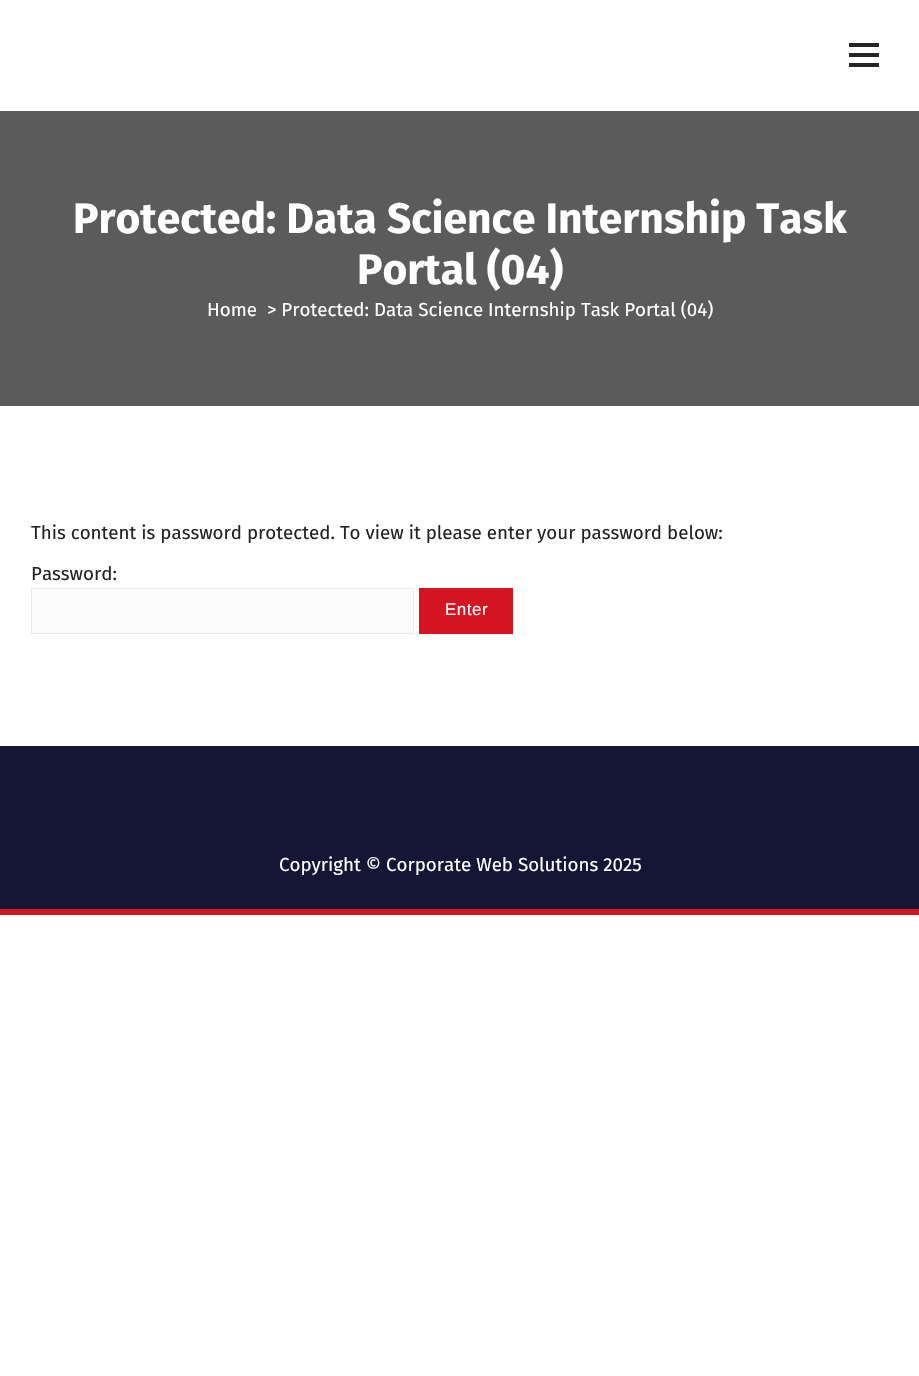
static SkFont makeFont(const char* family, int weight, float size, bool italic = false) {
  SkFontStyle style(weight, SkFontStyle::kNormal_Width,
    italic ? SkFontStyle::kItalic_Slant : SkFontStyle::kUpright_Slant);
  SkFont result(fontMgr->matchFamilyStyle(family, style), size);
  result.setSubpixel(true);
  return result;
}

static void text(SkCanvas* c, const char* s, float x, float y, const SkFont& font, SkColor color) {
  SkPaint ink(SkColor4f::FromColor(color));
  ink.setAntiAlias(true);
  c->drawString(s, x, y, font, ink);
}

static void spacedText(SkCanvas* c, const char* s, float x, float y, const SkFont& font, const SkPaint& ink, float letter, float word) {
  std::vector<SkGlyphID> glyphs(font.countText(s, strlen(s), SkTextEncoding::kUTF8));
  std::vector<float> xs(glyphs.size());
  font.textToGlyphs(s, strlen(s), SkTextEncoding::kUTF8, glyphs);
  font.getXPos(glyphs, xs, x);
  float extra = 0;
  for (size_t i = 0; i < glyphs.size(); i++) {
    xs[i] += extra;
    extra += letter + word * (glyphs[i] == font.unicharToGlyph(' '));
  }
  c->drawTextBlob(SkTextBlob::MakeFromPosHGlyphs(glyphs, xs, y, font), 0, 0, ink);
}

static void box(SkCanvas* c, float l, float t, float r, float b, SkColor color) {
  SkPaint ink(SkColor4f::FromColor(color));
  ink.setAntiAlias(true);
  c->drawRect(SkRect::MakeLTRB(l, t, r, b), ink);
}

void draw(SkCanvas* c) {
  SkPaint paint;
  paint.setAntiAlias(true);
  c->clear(0xffffffff);
  box(c, 849, 43, 879, 47, 0xff242424);
  box(c, 849, 53, 879, 57, 0xff242424);
  box(c, 849, 63, 879, 67, 0xff242424);
  box(c, 0, 111, 919, 406, 0xff5b5b5b);
  SkFont face1 = makeFont("Fira Sans", 700, 42.5f);
  text(c, "Protected: Data Science Internship Task", 73, 233, face1, 0xffffffff);
  text(c, "Portal (04)", 357, 284, face1, 0xffffffff);
  SkFont face2 = makeFont("Fira Sans", 400, 18.75f);
  text(c, "Home", 207, 316, face2, 0xffffffff);
  text(c, "> Protected: Data Science Internship Task Portal (04)", 267, 316, face2, 0xffffffff);
  text(c, "This content is password protected. To view it please enter your password below:", 31, 539, face2, 0xff242424);
  text(c, "Password:", 31, 580, face2, 0xff242424);
  paint.setColor(0xfffbfbfb);
  c->drawRect(SkRect::MakeLTRB(31.5f, 588.5f, 413.5f, 633.5f), paint);
  paint.setStyle(SkPaint::kStroke_Style);
  paint.setStrokeWidth(1);
  paint.setColor(0xffe9e9ea);
  c->drawRect(SkRect::MakeLTRB(31.5f, 588.5f, 413.5f, 633.5f), paint);
  box(c, 419, 588, 513, 634, 0xffd61523);
  SkFont face3 = makeFont("Liberation Sans", 400, 17);
  paint.setStyle(SkPaint::kFill_Style);
  paint.setColor(0xffffffff);
  spacedText(c, "Enter", 445, 615, face3, paint, 0.5f, 0);
  box(c, 0, 746, 919, 909, 0xff151535);
  box(c, 0, 909, 919, 915, 0xffd61523);
  text(c, "Copyright © Corporate Web Solutions 2025", 279, 871, face2, 0xffffffff);
}
